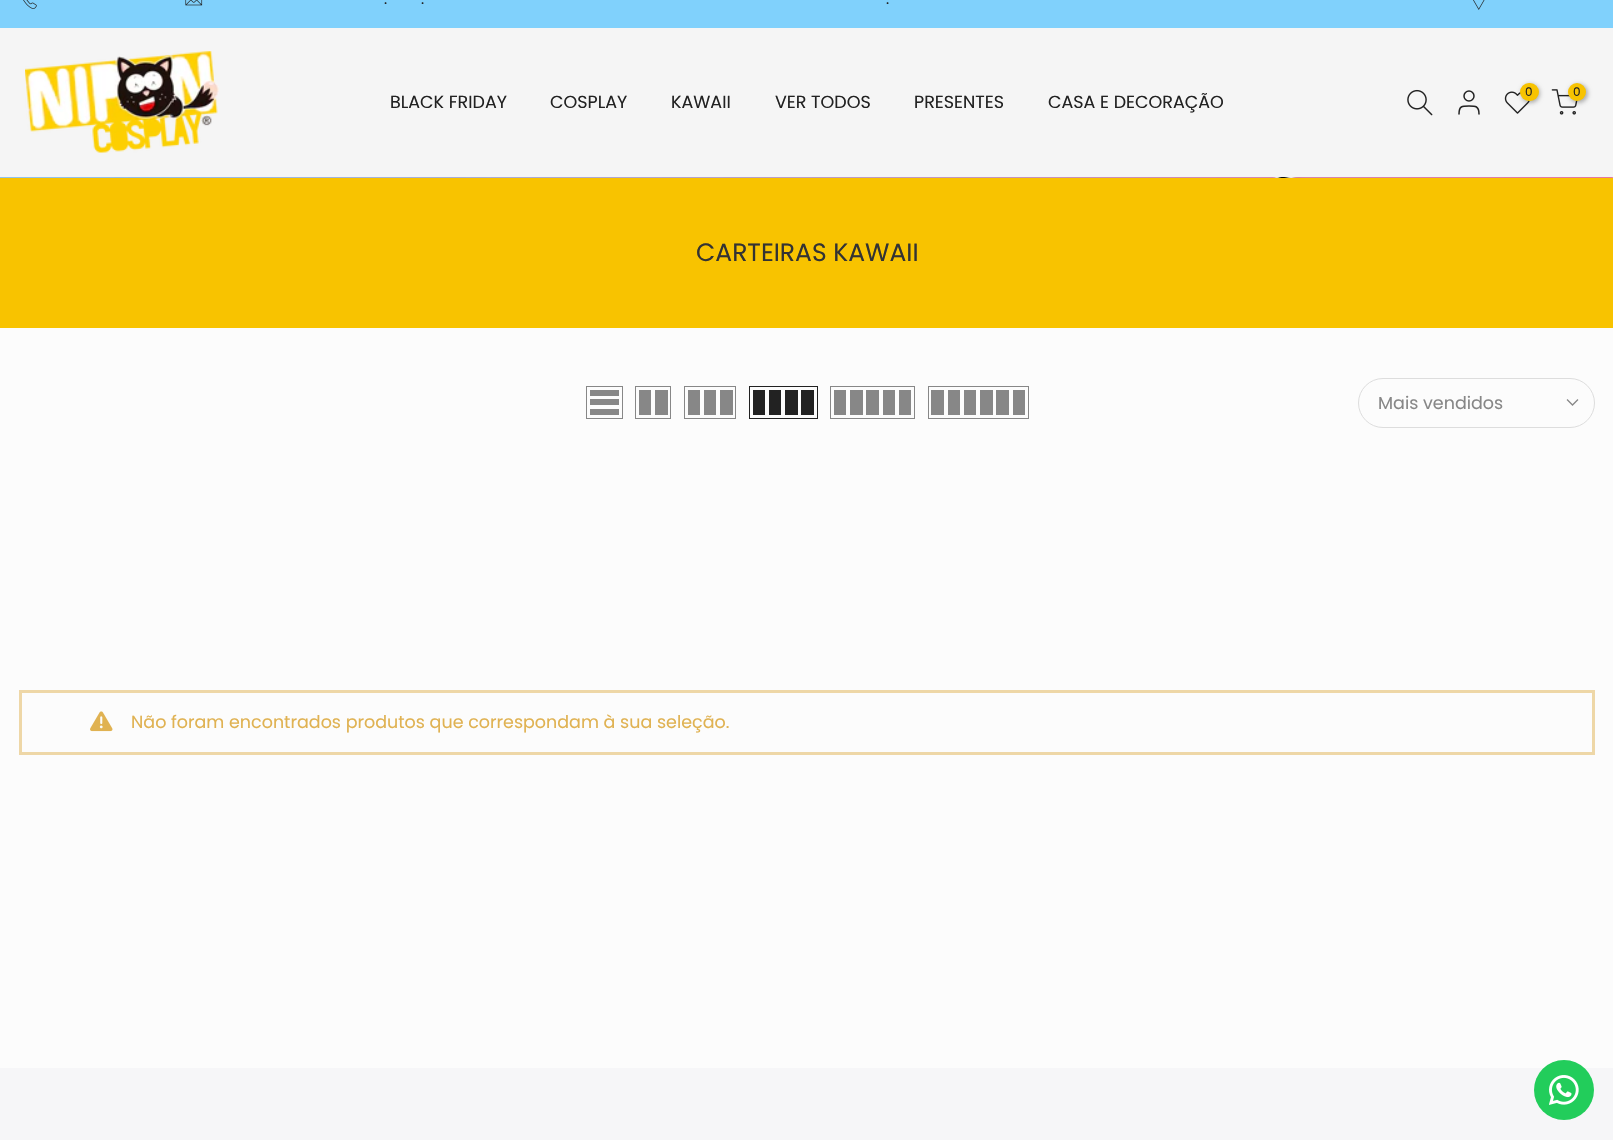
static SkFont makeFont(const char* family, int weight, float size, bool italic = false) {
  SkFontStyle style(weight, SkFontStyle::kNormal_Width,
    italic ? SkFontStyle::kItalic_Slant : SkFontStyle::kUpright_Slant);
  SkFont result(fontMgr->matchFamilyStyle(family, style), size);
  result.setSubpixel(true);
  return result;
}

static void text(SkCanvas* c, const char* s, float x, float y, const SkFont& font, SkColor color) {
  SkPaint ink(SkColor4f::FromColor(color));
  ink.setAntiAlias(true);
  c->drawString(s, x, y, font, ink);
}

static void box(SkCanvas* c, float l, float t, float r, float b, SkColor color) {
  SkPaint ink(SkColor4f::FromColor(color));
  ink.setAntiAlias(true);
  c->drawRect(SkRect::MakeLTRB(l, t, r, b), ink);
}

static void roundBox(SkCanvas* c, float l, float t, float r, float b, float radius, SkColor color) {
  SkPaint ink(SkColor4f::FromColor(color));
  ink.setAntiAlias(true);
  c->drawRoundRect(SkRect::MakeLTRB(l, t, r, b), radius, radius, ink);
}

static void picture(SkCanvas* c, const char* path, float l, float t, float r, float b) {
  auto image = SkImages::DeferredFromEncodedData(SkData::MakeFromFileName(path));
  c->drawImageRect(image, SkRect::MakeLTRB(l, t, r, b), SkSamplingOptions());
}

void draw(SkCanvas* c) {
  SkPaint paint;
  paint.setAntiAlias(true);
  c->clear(0xfffcfcfc);
  box(c, 0, 0, 1613, 28, 0xff80d1fc);
  picture(c, "img_01.png", 23, 0, 37, 9);
  picture(c, "img_02.png", 185, 0, 203, 6);
  SkFont face1 = makeFont("Poppins", 400, 15);
  text(c, ".", 384, 4, face1, 0xff222222);
  text(c, ".", 421, 4, face1, 0xff222222);
  text(c, ".", 886, 4, face1, 0xff222222);
  picture(c, "img_03.png", 1473, 0, 1485, 10);
  box(c, 0, 28, 1613, 178, 0xfff5f5f5);
  picture(c, "img_04.png", 25, 51, 219, 153);
  picture(c, "img_05.png", 1407, 89, 1433, 116);
  paint.setStyle(SkPaint::kStroke_Style);
  paint.setStrokeWidth(1.5f);
  paint.setColor(0xff222222);
  c->drawCircle(1469, 96, 5, paint);
  paint.setStrokeCap(SkPaint::kRound_Cap);
  paint.setStrokeJoin(SkPaint::kRound_Join);
  c->drawPath(SkPathBuilder().moveTo(1479, 114).cubicTo(1479, 106, 1475.5f, 106, 1469, 106).cubicTo(1462, 106, 1459, 106, 1459, 114).detach(), paint);
  picture(c, "img_06.png", 1504, 91, 1530, 114);
  paint.setStyle(SkPaint::kFill_Style);
  paint.setColor(0x4d000000);
  paint.setMaskFilter(SkMaskFilter::MakeBlur(kNormal_SkBlurStyle, 2));
  c->drawRoundRect(SkRect::MakeLTRB(1521, 84, 1540, 103), 9.5f, 9.5f, paint);
  paint.setMaskFilter(nullptr);
  roundBox(c, 1520, 83, 1539, 101, 9, 0xfff8c300);
  SkFont face2 = makeFont("Poppins", 400, 12);
  text(c, "0", 1525, 96, face2, 0xff222222);
  picture(c, "img_07.png", 1551, 89, 1578, 115);
  paint.setMaskFilter(SkMaskFilter::MakeBlur(kNormal_SkBlurStyle, 2));
  c->drawRoundRect(SkRect::MakeLTRB(1569, 84, 1588, 103), 9.5f, 9.5f, paint);
  paint.setMaskFilter(nullptr);
  paint.setColor(0xfff8c300);
  c->drawCircle(1577, 92, 9, paint);
  text(c, "0", 1573, 96, face2, 0xff222222);
  SkFont face3 = makeFont("Poppins", 400, 17.5f);
  text(c, "BLACK FRIDAY", 390, 108, face3, 0xff222222);
  text(c, "COSPLAY", 550, 108, face3, 0xff222222);
  text(c, "KAWAII", 671, 108, face3, 0xff222222);
  text(c, "VER TODOS", 775, 108, face3, 0xff222222);
  text(c, "PRESENTES", 914, 108, face3, 0xff222222);
  text(c, "CASA E DECORAÇÃO", 1048, 108, face3, 0xff222222);
  picture(c, "img_08.png", 0, 177, 1613, 178);
  box(c, 0, 178, 1613, 328, 0xfff8c300);
  SkFont face4 = makeFont("Poppins", 400, 25);
  text(c, "CARTEIRAS KAWAII", 696, 261, face4, 0xff333333);
  paint.setStyle(SkPaint::kStroke_Style);
  paint.setStrokeWidth(1);
  paint.setStrokeCap(SkPaint::kButt_Cap);
  paint.setStrokeJoin(SkPaint::kMiter_Join);
  paint.setColor(0xff878787);
  c->drawRect(SkRect::MakeLTRB(586.5f, 386.5f, 622.5f, 418.5f), paint);
  box(c, 590, 409, 619, 415, 0xff878787);
  box(c, 590, 399, 619, 405, 0xff878787);
  box(c, 590, 390, 619, 396, 0xff878787);
  c->drawRect(SkRect::MakeLTRB(635.5f, 386.5f, 670.5f, 418.5f), paint);
  box(c, 655, 390, 668, 415, 0xff878787);
  box(c, 639, 390, 651, 415, 0xff878787);
  c->drawRect(SkRect::MakeLTRB(684.5f, 386.5f, 735.5f, 418.5f), paint);
  box(c, 720, 390, 733, 415, 0xff878787);
  box(c, 704, 390, 716, 415, 0xff878787);
  box(c, 688, 390, 700, 415, 0xff878787);
  paint.setColor(0xff222222);
  c->drawRect(SkRect::MakeLTRB(749.5f, 386.5f, 817.5f, 418.5f), paint);
  box(c, 801, 390, 814, 415, 0xff222222);
  box(c, 785, 390, 798, 415, 0xff222222);
  box(c, 769, 390, 781, 415, 0xff222222);
  box(c, 753, 390, 765, 415, 0xff222222);
  paint.setColor(0xff878787);
  c->drawRect(SkRect::MakeLTRB(830.5f, 386.5f, 914.5f, 418.5f), paint);
  box(c, 899, 390, 911, 415, 0xff878787);
  box(c, 883, 390, 895, 415, 0xff878787);
  box(c, 866, 390, 879, 415, 0xff878787);
  box(c, 850, 390, 863, 415, 0xff878787);
  box(c, 834, 390, 846, 415, 0xff878787);
  c->drawRect(SkRect::MakeLTRB(928.5f, 386.5f, 1028.5f, 418.5f), paint);
  box(c, 1013, 390, 1025, 415, 0xff878787);
  box(c, 996, 390, 1009, 415, 0xff878787);
  box(c, 980, 390, 993, 415, 0xff878787);
  box(c, 964, 390, 976, 415, 0xff878787);
  box(c, 948, 390, 960, 415, 0xff878787);
  box(c, 931, 390, 944, 415, 0xff878787);
  paint.setColor(0xffdddddd);
  c->drawRoundRect(SkRect::MakeLTRB(1358.5f, 378.5f, 1594.5f, 427.5f), 24.5f, 24.5f, paint);
  text(c, "Mais vendidos", 1378, 409, face3, 0xff878787);
  paint.setStrokeWidth(1.3f);
  paint.setStrokeCap(SkPaint::kSquare_Cap);
  paint.setColor(0xff878787);
  c->drawPath(SkPathBuilder().moveTo(1577.5f, 400).lineTo(1572.5f, 405).lineTo(1567.5f, 400).detach(), paint);
  paint.setStrokeWidth(3);
  paint.setStrokeCap(SkPaint::kButt_Cap);
  paint.setColor(0xffeed7a7);
  c->drawRect(SkRect::MakeLTRB(20.5f, 691.5f, 1593.5f, 753.5f), paint);
  picture(c, "img_09.png", 90, 711, 113, 732);
  text(c, "Não foram encontrados produtos que correspondam à sua seleção.", 131, 728, face3, 0xffe0b252);
  box(c, 0, 1068, 1613, 1140, 0xfff6f6f8);
  paint.setStyle(SkPaint::kFill_Style);
  paint.setColor(0xff22cd5b);
  c->drawCircle(1564, 1090, 30, paint);
  picture(c, "img_10.png", 1549, 1075, 1579, 1105);
}
